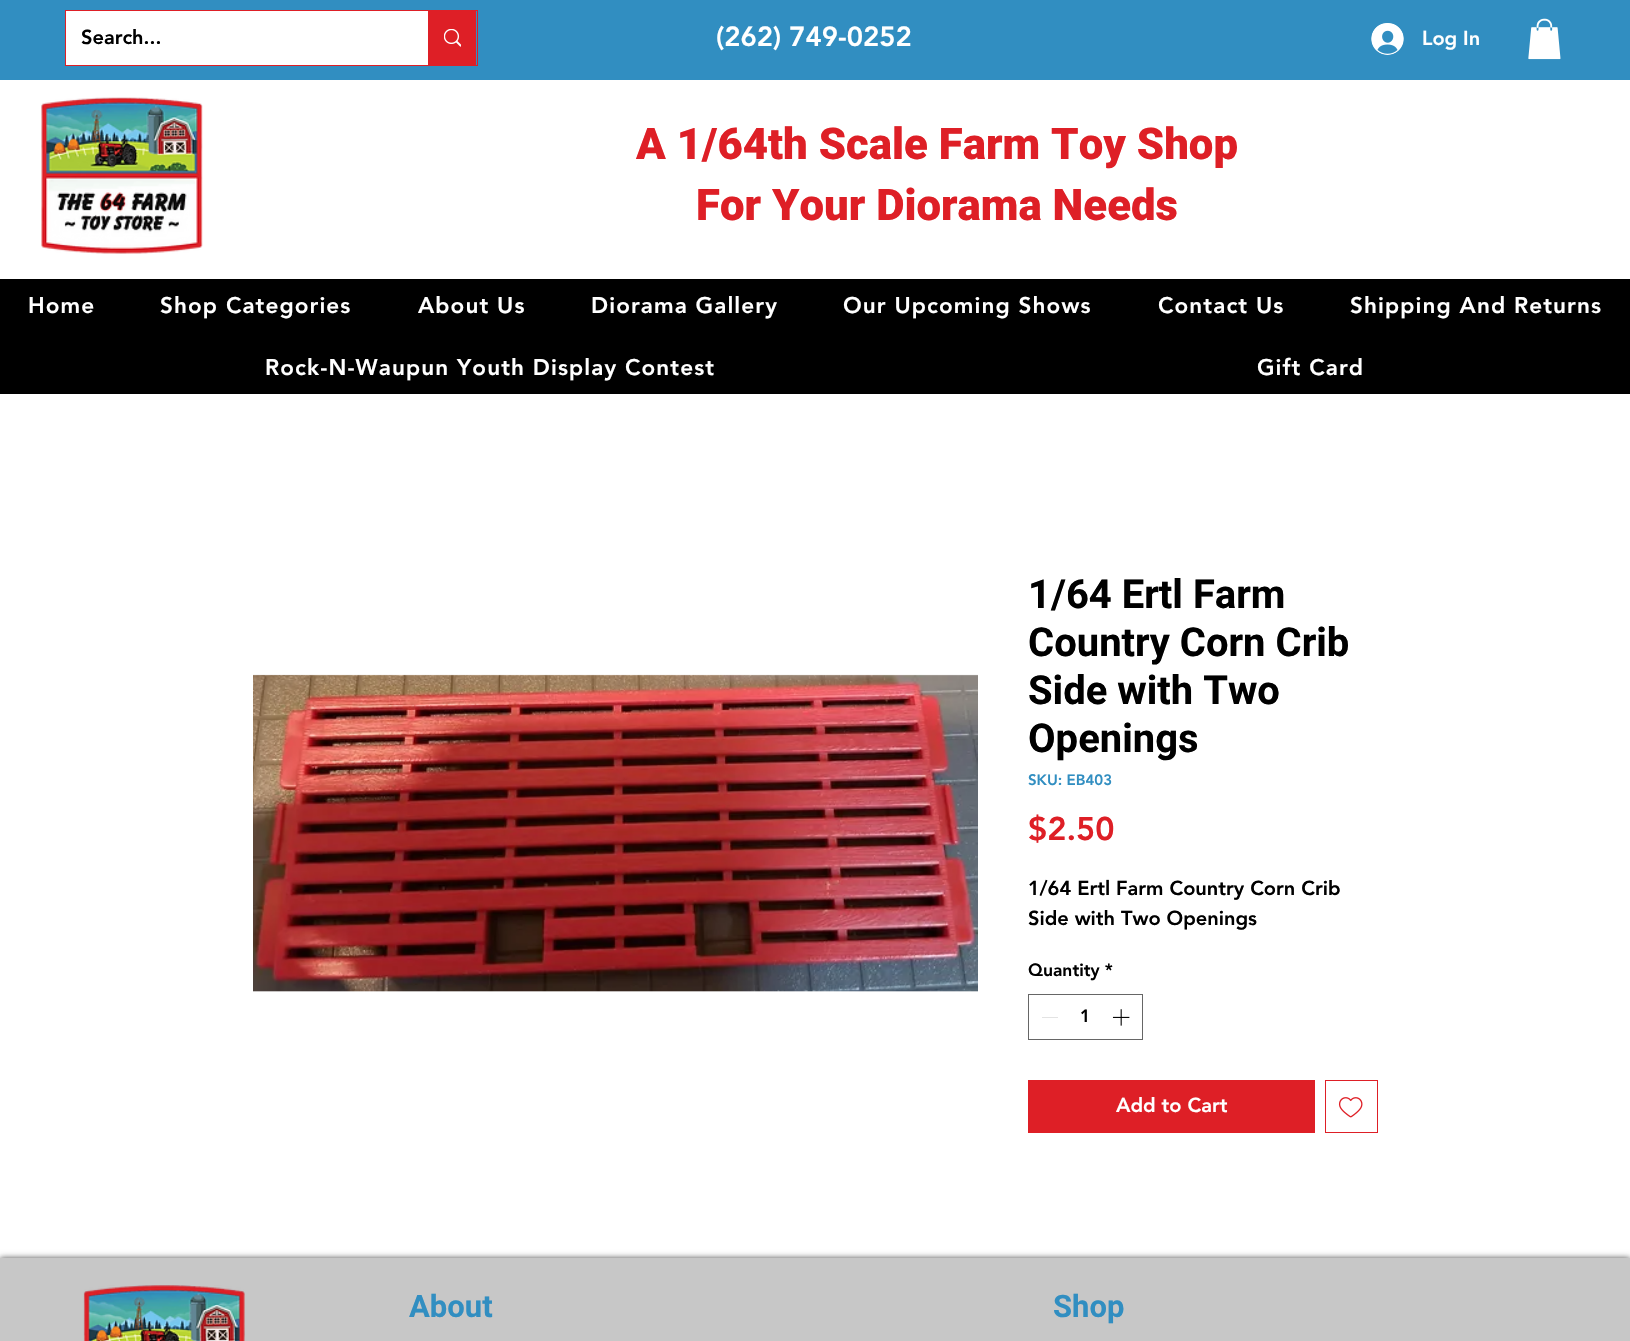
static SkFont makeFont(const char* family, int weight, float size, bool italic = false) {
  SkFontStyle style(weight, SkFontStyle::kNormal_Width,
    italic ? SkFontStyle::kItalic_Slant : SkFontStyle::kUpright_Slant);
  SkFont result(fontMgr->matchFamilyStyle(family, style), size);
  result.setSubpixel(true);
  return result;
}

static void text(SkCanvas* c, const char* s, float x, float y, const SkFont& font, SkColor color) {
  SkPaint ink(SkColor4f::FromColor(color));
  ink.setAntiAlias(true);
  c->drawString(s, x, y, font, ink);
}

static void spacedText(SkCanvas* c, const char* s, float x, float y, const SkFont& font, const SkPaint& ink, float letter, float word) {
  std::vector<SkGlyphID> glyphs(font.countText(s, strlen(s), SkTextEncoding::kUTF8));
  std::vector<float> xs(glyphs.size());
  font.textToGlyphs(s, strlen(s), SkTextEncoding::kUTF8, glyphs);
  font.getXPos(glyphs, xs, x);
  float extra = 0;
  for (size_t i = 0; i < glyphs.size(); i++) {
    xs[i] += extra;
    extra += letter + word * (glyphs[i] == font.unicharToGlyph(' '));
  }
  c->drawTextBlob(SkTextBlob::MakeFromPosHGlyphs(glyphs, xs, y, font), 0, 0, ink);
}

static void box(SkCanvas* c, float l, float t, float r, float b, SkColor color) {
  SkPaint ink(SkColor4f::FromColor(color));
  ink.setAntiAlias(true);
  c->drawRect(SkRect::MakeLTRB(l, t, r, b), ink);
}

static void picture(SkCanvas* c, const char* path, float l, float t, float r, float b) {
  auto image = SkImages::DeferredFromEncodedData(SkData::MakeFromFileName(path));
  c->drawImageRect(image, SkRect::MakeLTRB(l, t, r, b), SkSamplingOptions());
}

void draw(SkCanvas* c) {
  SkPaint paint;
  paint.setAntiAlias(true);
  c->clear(0xffffffff);
  box(c, 0, 0, 1630, 80, 0xff318ec1);
  paint.setStyle(SkPaint::kStroke_Style);
  paint.setStrokeWidth(1);
  paint.setColor(0xffde1f26);
  c->drawRect(SkRect::MakeLTRB(65.5f, 10.5f, 477.5f, 65.5f), paint);
  box(c, 66, 11, 428, 65, 0xffffffff);
  SkFont face1 = makeFont("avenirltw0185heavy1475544", 900, 20);
  text(c, "Search...", 81, 44, face1, 0xff000000);
  box(c, 428, 11, 476, 65, 0xffde1f26);
  picture(c, "img_01.png", 444, 29, 461, 47);
  SkFont face2 = makeFont("avenirltw0185heavy1475544", 900, 27.5f);
  text(c, "(262) 749-0252", 716, 46, face2, 0xffffffff);
  picture(c, "img_02.png", 1371, 23, 1404, 55);
  text(c, "Log In", 1422, 45, face1, 0xffffffff);
  picture(c, "img_03.png", 1528, 18, 1561, 60);
  picture(c, "img_04.png", 41, 97, 203, 254);
  SkFont face3 = makeFont("Roboto", 900, 43.75f);
  text(c, "A 1/64th Scale Farm Toy Shop", 636, 159, face3, 0xffde1f26);
  text(c, "For Your Diorama Needs", 696, 220, face3, 0xffde1f26);
  box(c, 0, 279, 1630, 394, 0xff000000);
  SkFont face4 = makeFont("avenirltw0185heavy1475544", 900, 22.5f);
  paint.setStyle(SkPaint::kFill_Style);
  paint.setColor(0xffffffff);
  spacedText(c, "Home", 28, 313, face4, paint, 1.1f, 0);
  spacedText(c, "Shop Categories", 160, 313, face4, paint, 1.1f, 0);
  spacedText(c, "About Us", 418, 313, face4, paint, 1.1f, 0);
  spacedText(c, "Diorama Gallery", 591, 313, face4, paint, 1.1f, 0);
  spacedText(c, "Our Upcoming Shows", 843, 313, face4, paint, 1.1f, 0);
  spacedText(c, "Contact Us", 1158, 313, face4, paint, 1.1f, 0);
  spacedText(c, "Shipping And Returns", 1350, 313, face4, paint, 1.1f, 0);
  spacedText(c, "Rock-N-Waupun Youth Display Contest", 265, 375, face4, paint, 1.1f, 0);
  spacedText(c, "Gift Card", 1257, 375, face4, paint, 1.1f, 0);
  picture(c, "img_05.png", 253, 674, 978, 992);
  SkFont face5 = makeFont("Roboto", 700, 40);
  text(c, "1/64 Ertl Farm", 1028, 608, face5, 0xff000000);
  text(c, "Country Corn Crib", 1028, 656, face5, 0xff000000);
  text(c, "Side with Two", 1028, 704, face5, 0xff000000);
  text(c, "Openings", 1028, 752, face5, 0xff000000);
  SkFont face6 = makeFont("avenirltw0185heavy1475544", 900, 15);
  text(c, "SKU: EB403", 1028, 785, face6, 0xff318ec1);
  SkFont face7 = makeFont("avenirltw0185heavy1475544", 900, 32.5f);
  text(c, "$2.50", 1028, 840, face7, 0xffde1f26);
  text(c, "1/64 Ertl Farm Country Corn Crib", 1028, 895, face1, 0xff000000);
  text(c, "Side with Two Openings", 1028, 925, face1, 0xff000000);
  SkFont face8 = makeFont("avenirltw0185heavy1475544", 900, 17.5f);
  text(c, "Quantity *", 1028, 976, face8, 0xff000000);
  paint.setStyle(SkPaint::kStroke_Style);
  paint.setColor(0xff666666);
  c->drawRect(SkRect::MakeLTRB(1028.5f, 994.5f, 1142.5f, 1039.5f), paint);
  box(c, 1042, 1017, 1058, 1018, 0xffe3e3e3);
  text(c, "1", 1080, 1022, face8, 0xff000000);
  picture(c, "img_06.png", 1112, 1009, 1130, 1026);
  box(c, 1028, 1080, 1315, 1133, 0xffde1f26);
  text(c, "Add to Cart", 1116, 1112, face1, 0xffffffff);
  paint.setColor(0xffde1f26);
  c->drawRect(SkRect::MakeLTRB(1325.5f, 1080.5f, 1377.5f, 1132.5f), paint);
  picture(c, "img_07.png", 1338, 1097, 1363, 1118);
  paint.setStyle(SkPaint::kFill_Style);
  paint.setColor(0xb3000000);
  paint.setMaskFilter(SkMaskFilter::MakeBlur(kNormal_SkBlurStyle, 3));
  c->drawRect(SkRect::MakeLTRB(0, 1258, 1630, 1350), paint);
  paint.setMaskFilter(nullptr);
  box(c, 0, 1258, 1630, 1341, 0xffc7c7c7);
  picture(c, "img_08.png", 83, 1285, 245, 1341);
  SkFont face9 = makeFont("Roboto", 700, 31);
  text(c, "About", 409, 1317, face9, 0xff318ec1);
  text(c, "Shop", 1053, 1317, face9, 0xff318ec1);
}
